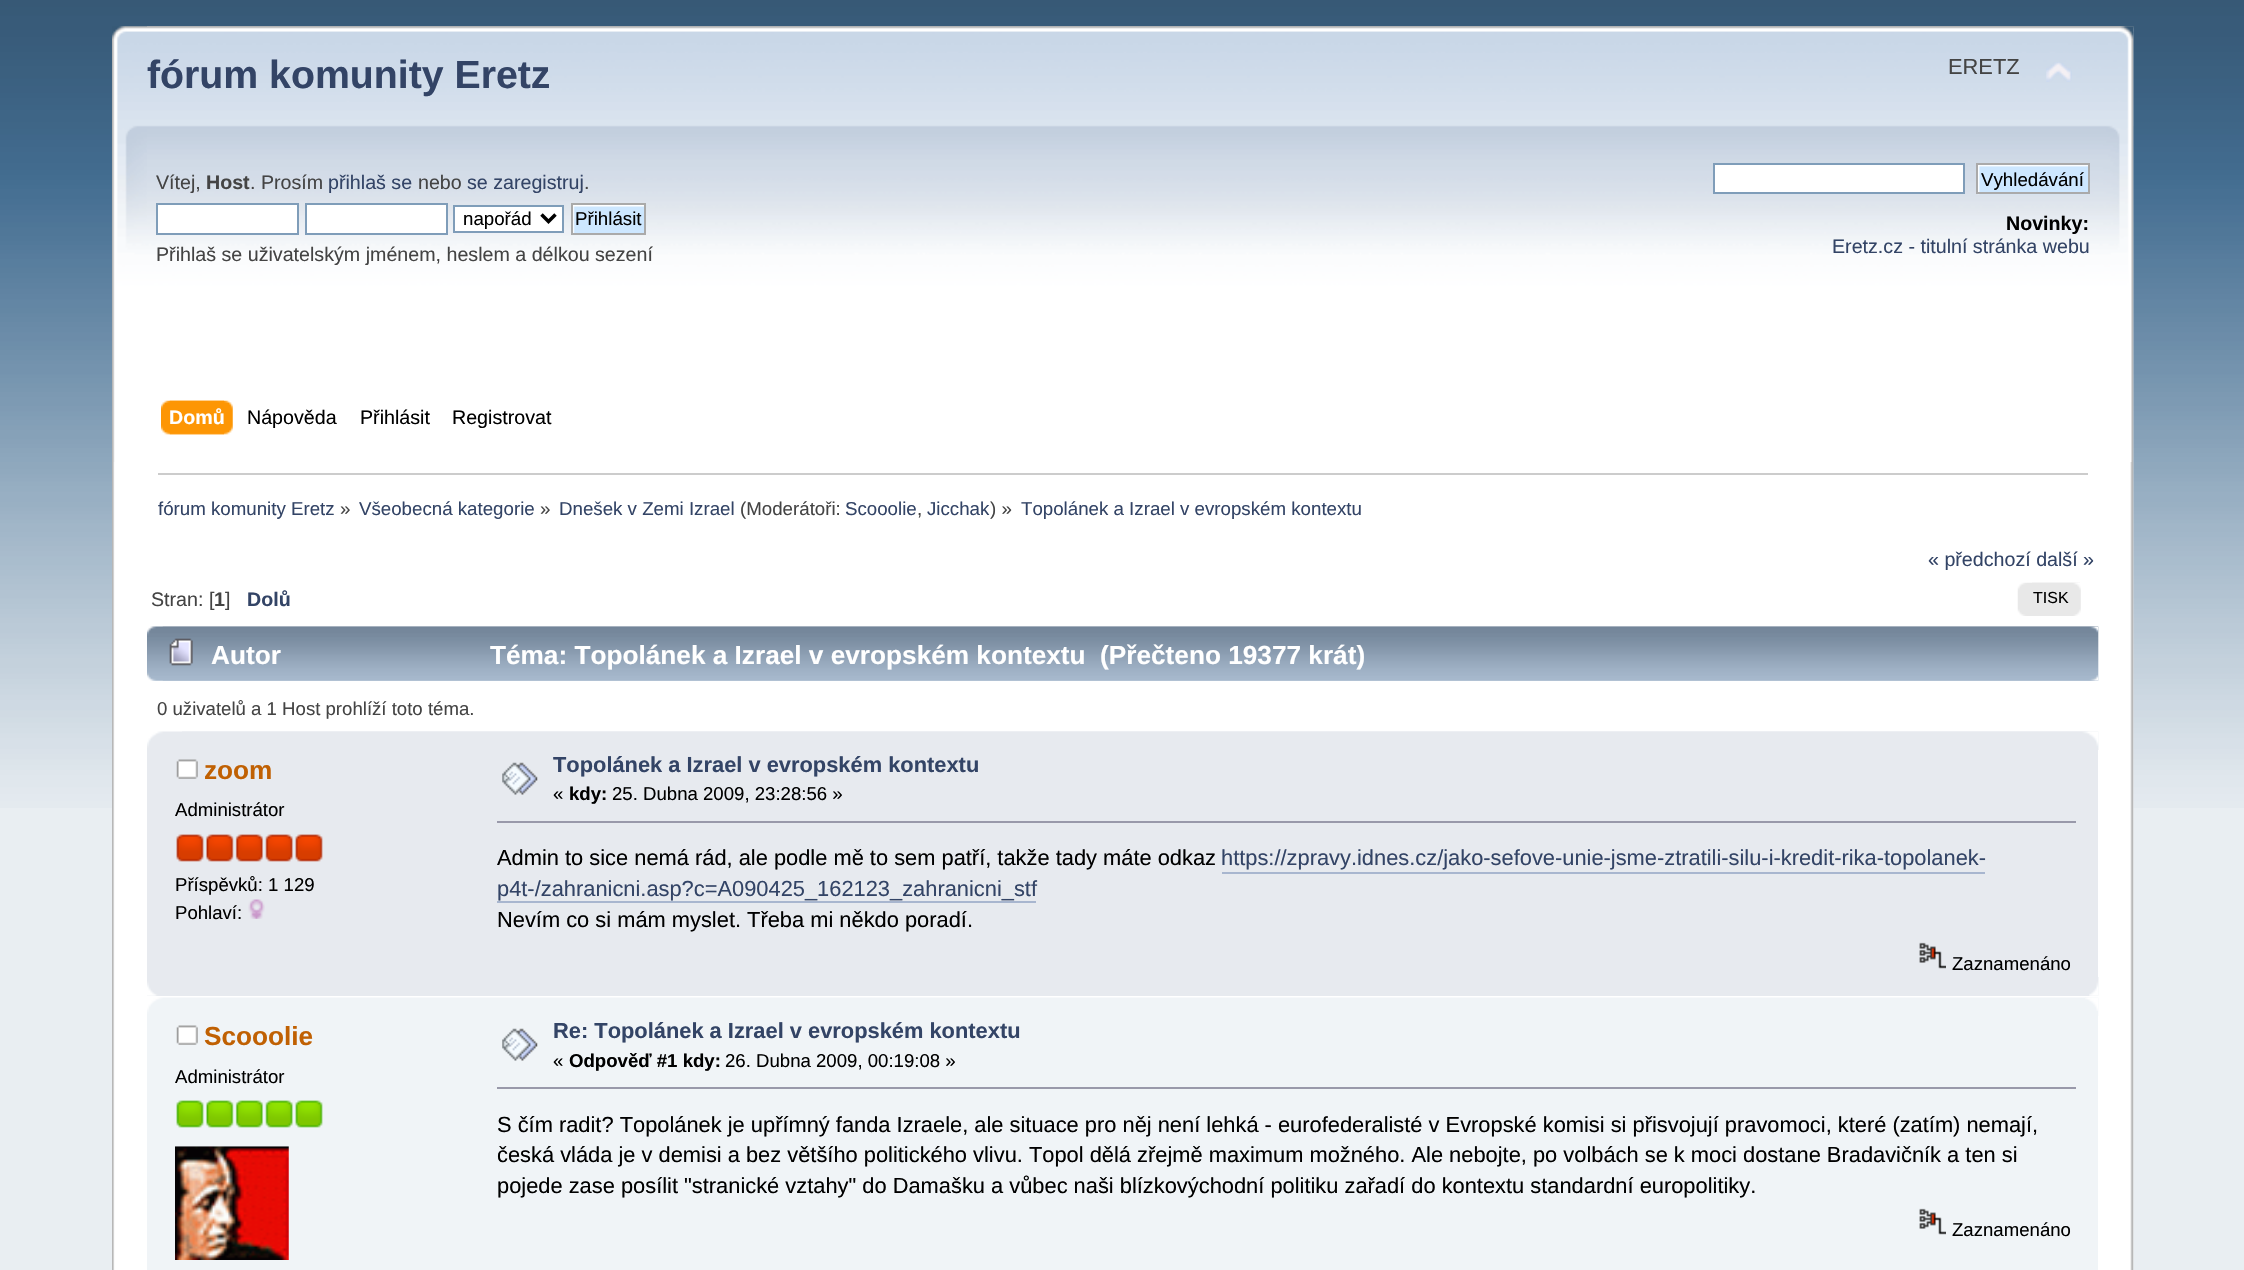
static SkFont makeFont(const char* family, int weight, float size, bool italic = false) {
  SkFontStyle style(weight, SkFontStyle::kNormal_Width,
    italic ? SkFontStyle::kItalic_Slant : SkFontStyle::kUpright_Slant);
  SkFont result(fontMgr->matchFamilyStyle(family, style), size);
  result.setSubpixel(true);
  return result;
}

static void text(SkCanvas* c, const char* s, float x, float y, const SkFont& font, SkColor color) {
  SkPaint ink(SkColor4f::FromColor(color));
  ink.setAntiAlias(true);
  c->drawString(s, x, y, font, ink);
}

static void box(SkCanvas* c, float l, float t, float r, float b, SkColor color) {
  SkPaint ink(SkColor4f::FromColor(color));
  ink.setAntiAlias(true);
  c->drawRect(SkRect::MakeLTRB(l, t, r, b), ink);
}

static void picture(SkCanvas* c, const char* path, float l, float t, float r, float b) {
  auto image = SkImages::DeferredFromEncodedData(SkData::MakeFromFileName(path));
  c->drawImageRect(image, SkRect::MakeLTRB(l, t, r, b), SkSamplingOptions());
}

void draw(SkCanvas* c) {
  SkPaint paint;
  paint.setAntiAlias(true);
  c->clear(0xffe9eef2);
  picture(c, "img_01.png", 0, 0, 2244, 808);
  picture(c, "img_02.png", 112, 26, 2134, 462);
  picture(c, "img_03.png", 147, 26, 2134, 462);
  SkFont face1 = makeFont("Liberation Sans", 700, 39.25f);
  text(c, "fórum komunity Eretz", 147, 88, face1, 0xff334466);
  SkFont face2 = makeFont("Liberation Sans", 400, 21.85f);
  text(c, "ERETZ", 1948, 74, face2, 0xff444444);
  picture(c, "img_04.png", 2046, 62, 2072, 82);
  SkFont face3 = makeFont("Liberation Sans", 400, 19.65f);
  text(c, "Vítej,", 156, 189, face3, 0xff444444);
  SkFont face4 = makeFont("Liberation Sans", 700, 19.65f);
  text(c, "Host", 206, 189, face4, 0xff444444);
  text(c, ". Prosím", 250, 189, face3, 0xff444444);
  text(c, "přihlaš se", 328, 189, face3, 0xff334466);
  text(c, "nebo", 418, 189, face3, 0xff444444);
  text(c, "se zaregistruj", 467, 189, face3, 0xff334466);
  text(c, ".", 584, 189, face3, 0xff444444);
  paint.setColor(0xffffffff);
  c->drawRect(SkRect::MakeLTRB(157, 204, 298, 234), paint);
  paint.setStyle(SkPaint::kStroke_Style);
  paint.setStrokeWidth(2);
  paint.setColor(0xff7f9db9);
  c->drawRect(SkRect::MakeLTRB(157, 204, 298, 234), paint);
  paint.setStyle(SkPaint::kFill_Style);
  paint.setColor(0xffffffff);
  c->drawRect(SkRect::MakeLTRB(306, 204, 447, 234), paint);
  paint.setStyle(SkPaint::kStroke_Style);
  paint.setColor(0xff7f9db9);
  c->drawRect(SkRect::MakeLTRB(306, 204, 447, 234), paint);
  paint.setStyle(SkPaint::kFill_Style);
  paint.setColor(0xffffffff);
  c->drawRect(SkRect::MakeLTRB(454, 206, 563, 232), paint);
  paint.setStyle(SkPaint::kStroke_Style);
  paint.setColor(0xff7f9db9);
  c->drawRect(SkRect::MakeLTRB(454, 206, 563, 232), paint);
  paint.setStrokeWidth(3.5f);
  paint.setColor(0xff000000);
  c->drawPath(SkPathBuilder().moveTo(541.5f, 214.5f).lineTo(548.5f, 221.5f).lineTo(555.5f, 214.5f).detach(), paint);
  SkFont face5 = makeFont("Liberation Sans", 400, 18.7f);
  text(c, "napořád", 463, 225, face5, 0xff000000);
  picture(c, "img_05.png", 573, 205, 644, 233);
  paint.setStrokeWidth(2);
  paint.setColor(0xffaaaaaa);
  c->drawRect(SkRect::MakeLTRB(572, 204, 645, 234), paint);
  text(c, "Přihlásit", 575, 225, face5, 0xff000000);
  text(c, "Přihlaš se uživatelským jménem, heslem a délkou sezení", 156, 261, face3, 0xff444444);
  paint.setStyle(SkPaint::kFill_Style);
  paint.setColor(0xffffffff);
  c->drawRect(SkRect::MakeLTRB(1714, 164, 1964, 193), paint);
  paint.setStyle(SkPaint::kStroke_Style);
  paint.setColor(0xff7f9db9);
  c->drawRect(SkRect::MakeLTRB(1714, 164, 1964, 193), paint);
  picture(c, "img_06.png", 1977, 165, 2090, 195);
  paint.setColor(0xffaaaaaa);
  c->drawRect(SkRect::MakeLTRB(1977, 164, 2089, 193), paint);
  text(c, "Vyhledávání", 1981, 186, face5, 0xff000000);
  text(c, "Novinky:", 2006, 230, face4, 0xff000000);
  text(c, "Eretz.cz - titulní stránka webu", 1832, 253, face3, 0xff334466);
  picture(c, "img_07.png", 169, 400, 233, 435);
  picture(c, "img_08.png", 161, 400, 224, 435);
  text(c, "Domů", 169, 424, face4, 0xffffffff);
  text(c, "Nápověda", 247, 424, face3, 0xff000000);
  text(c, "Přihlásit", 360, 424, face3, 0xff000000);
  text(c, "Registrovat", 452, 424, face3, 0xff000000);
  picture(c, "img_09.png", 112, 462, 2134, 1270);
  picture(c, "img_10.png", 2130, 462, 2134, 1270);
  box(c, 158, 473, 2088, 475, 0xffcccccc);
  text(c, "fórum komunity Eretz", 158, 515, face5, 0xff334466);
  text(c, "»", 340, 515, face5, 0xff444444);
  text(c, "Všeobecná kategorie", 359, 515, face5, 0xff334466);
  text(c, "»", 540, 515, face5, 0xff444444);
  text(c, "Dnešek v Zemi Izrael", 559, 515, face5, 0xff334466);
  text(c, "(Moderátoři:", 740, 515, face5, 0xff444444);
  text(c, "Scooolie", 845, 515, face5, 0xff334466);
  text(c, ",", 917, 515, face5, 0xff444444);
  text(c, "Jicchak", 927, 515, face5, 0xff334466);
  text(c, ") »", 990, 515, face5, 0xff444444);
  text(c, "Topolánek a Izrael v evropském kontextu", 1021, 515, face5, 0xff334466);
  text(c, "« předchozí další »", 1928, 566, face3, 0xff334466);
  text(c, "Stran: [", 151, 606, face3, 0xff444444);
  text(c, "1", 214, 606, face4, 0xff444444);
  text(c, "]", 225, 606, face3, 0xff444444);
  text(c, "Dolů", 247, 606, face4, 0xff334466);
  picture(c, "img_11.png", 2017, 582, 2080, 616);
  picture(c, "img_12.png", 2032, 582, 2081, 616);
  SkFont face6 = makeFont("Liberation Sans", 400, 16);
  text(c, "TISK", 2033, 603, face6, 0xff000000);
  picture(c, "img_13.png", 147, 626, 2099, 681);
  picture(c, "img_14.png", 162, 626, 2099, 681);
  picture(c, "img_15.png", 169, 638, 193, 666);
  SkFont face7 = makeFont("Liberation Sans", 700, 26.2f);
  text(c, "Autor", 211, 664, face7, 0xffffffff);
  text(c, "Téma: Topolánek a Izrael v evropském kontextu  (Přečteno 19377 krát)", 490, 664, face7, 0xffffffff);
  SkFont face8 = makeFont("Liberation Sans", 400, 18.6f);
  text(c, "0 uživatelů a 1 Host prohlíží toto téma.", 157, 715, face8, 0xff444444);
  box(c, 147, 750, 2098, 996, 0xffe7eaef);
  picture(c, "img_16.png", 147, 731, 2099, 750);
  picture(c, "img_17.png", 182, 731, 2099, 750);
  picture(c, "img_18.png", 176, 759, 198, 779);
  text(c, "zoom", 204, 779, face7, 0xffc06002);
  text(c, "Administrátor", 175, 816, face8, 0xff000000);
  picture(c, "img_19.png", 176, 834, 204, 862);
  picture(c, "img_20.png", 206, 834, 234, 862);
  picture(c, "img_21.png", 235, 834, 263, 862);
  picture(c, "img_22.png", 265, 834, 293, 862);
  picture(c, "img_23.png", 295, 834, 323, 862);
  text(c, "Příspěvků: 1 129", 175, 891, face8, 0xff000000);
  text(c, "Pohlaví:", 175, 919, face8, 0xff000000);
  picture(c, "img_24.png", 248, 899, 265, 919);
  picture(c, "img_25.png", 502, 762, 538, 795);
  SkFont face9 = makeFont("Liberation Sans", 700, 21.85f);
  text(c, "Topolánek a Izrael v evropském kontextu", 553, 772, face9, 0xff334466);
  text(c, "«", 553, 800, face8, 0xff000000);
  SkFont face10 = makeFont("Liberation Sans", 700, 18.6f);
  text(c, "kdy:", 569, 800, face10, 0xff000000);
  text(c, "25. Dubna 2009, 23:28:56 »", 612, 800, face8, 0xff000000);
  box(c, 497, 821, 2076, 823, 0xff9999aa);
  text(c, "Admin to sice nemá rád, ale podle mě to sem patří, takže tady máte odkaz", 497, 865, face2, 0xff000000);
  text(c, "https://zpravy.idnes.cz/jako-sefove-unie-jsme-ztratili-silu-i-kredit-rika-topolanek-", 1221, 865, face2, 0xff334466);
  box(c, 1222, 872, 1985, 874, 0xffa8b6cf);
  text(c, "p4t-/zahranicni.asp?c=A090425_162123_zahranicni_stf", 497, 896, face2, 0xff334466);
  box(c, 497, 901, 1036, 903, 0xffa8b6cf);
  text(c, "Nevím co si mám myslet. Třeba mi někdo poradí.", 497, 927, face2, 0xff000000);
  picture(c, "img_26.png", 1919, 942, 1946, 969);
  text(c, "Zaznamenáno", 1952, 970, face8, 0xff000000);
  picture(c, "img_27.png", 147, 977, 2099, 996);
  picture(c, "img_28.png", 2089, 977, 2099, 996);
  box(c, 147, 1016, 2098, 1270, 0xfff0f4f7);
  picture(c, "img_29.png", 147, 997, 2099, 1016);
  picture(c, "img_30.png", 2085, 997, 2098, 1011);
  picture(c, "img_31.png", 176, 1025, 198, 1045);
  text(c, "Scooolie", 204, 1045, face7, 0xffc06002);
  text(c, "Administrátor", 175, 1083, face8, 0xff000000);
  picture(c, "img_32.png", 176, 1100, 204, 1128);
  picture(c, "img_33.png", 206, 1100, 234, 1128);
  picture(c, "img_34.png", 235, 1100, 263, 1128);
  picture(c, "img_35.png", 265, 1100, 293, 1128);
  picture(c, "img_36.png", 295, 1100, 323, 1128);
  picture(c, "img_37.png", 175, 1146, 289, 1260);
  picture(c, "img_38.png", 502, 1028, 538, 1061);
  text(c, "Re: Topolánek a Izrael v evropském kontextu", 553, 1038, face9, 0xff334466);
  text(c, "«", 553, 1067, face8, 0xff000000);
  text(c, "Odpověď #1 kdy:", 569, 1067, face10, 0xff000000);
  text(c, "26. Dubna 2009, 00:19:08 »", 725, 1067, face8, 0xff000000);
  box(c, 497, 1087, 2076, 1089, 0xff9999aa);
  text(c, "S čím radit? Topolánek je upřímný fanda Izraele, ale situace pro něj není lehká - eurofederalisté v Evropské komisi si přisvojují pravomoci, které (zatím) nemají,", 497, 1132, face2, 0xff000000);
  text(c, "česká vláda je v demisi a bez většího politického vlivu. Topol dělá zřejmě maximum možného. Ale nebojte, po volbách se k moci dostane Bradavičník a ten si", 497, 1162, face2, 0xff000000);
  text(c, "pojede zase posílit \"stranické vztahy\" do Damašku a vůbec naši blízkovýchodní politiku zařadí do kontextu standardní europolitiky.", 497, 1193, face2, 0xff000000);
  picture(c, "img_39.png", 1919, 1208, 1946, 1235);
  text(c, "Zaznamenáno", 1952, 1236, face8, 0xff000000);
}
